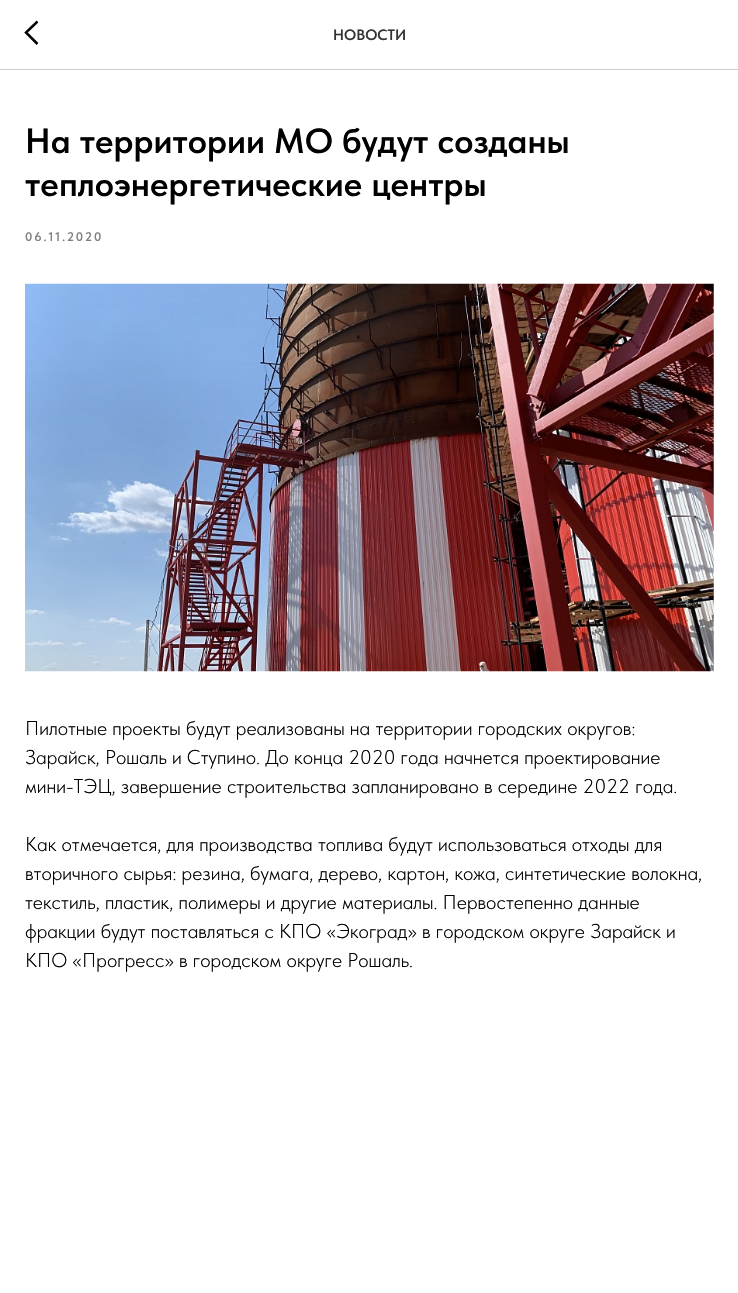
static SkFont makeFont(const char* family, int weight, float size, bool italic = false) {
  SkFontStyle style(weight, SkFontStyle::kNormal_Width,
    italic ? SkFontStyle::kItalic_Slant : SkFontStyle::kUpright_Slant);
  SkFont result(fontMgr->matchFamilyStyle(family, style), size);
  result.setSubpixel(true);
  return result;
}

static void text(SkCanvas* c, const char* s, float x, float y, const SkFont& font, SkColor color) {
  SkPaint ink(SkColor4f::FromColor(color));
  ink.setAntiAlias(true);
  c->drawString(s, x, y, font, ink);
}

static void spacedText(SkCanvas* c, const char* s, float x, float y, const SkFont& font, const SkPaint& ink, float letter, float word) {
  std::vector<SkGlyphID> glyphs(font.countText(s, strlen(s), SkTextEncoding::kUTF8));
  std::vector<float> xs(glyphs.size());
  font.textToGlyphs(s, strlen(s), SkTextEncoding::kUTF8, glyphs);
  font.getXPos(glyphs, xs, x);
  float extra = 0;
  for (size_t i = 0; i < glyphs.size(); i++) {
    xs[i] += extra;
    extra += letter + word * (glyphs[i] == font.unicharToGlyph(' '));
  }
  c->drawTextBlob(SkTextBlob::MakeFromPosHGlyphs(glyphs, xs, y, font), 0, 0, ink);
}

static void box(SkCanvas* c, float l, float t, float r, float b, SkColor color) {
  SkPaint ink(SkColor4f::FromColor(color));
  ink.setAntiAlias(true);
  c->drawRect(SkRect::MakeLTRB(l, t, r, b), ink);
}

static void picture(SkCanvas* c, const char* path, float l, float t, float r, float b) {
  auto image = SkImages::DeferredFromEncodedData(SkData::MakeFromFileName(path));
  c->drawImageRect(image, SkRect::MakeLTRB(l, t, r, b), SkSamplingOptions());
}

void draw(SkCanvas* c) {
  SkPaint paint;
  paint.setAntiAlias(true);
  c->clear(0xffffffff);
  box(c, 0, 69, 738, 70, 0xffcccccc);
  paint.setStyle(SkPaint::kStroke_Style);
  paint.setStrokeWidth(2.5f);
  paint.setColor(0xff000000);
  c->drawPath(SkPathBuilder().moveTo(37.5f, 44).lineTo(26, 32.5f).lineTo(37.5f, 21.5f).detach(), paint);
  SkFont face1 = makeFont("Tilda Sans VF", 600, 15);
  text(c, "НОВОСТИ", 333, 40, face1, 0xff333333);
  SkFont face2 = makeFont("Tilda Sans VF", 600, 35);
  text(c, "На территории МО будут созданы", 25, 153, face2, 0xff000000);
  text(c, "теплоэнергетические центры", 25, 196, face2, 0xff000000);
  SkFont face3 = makeFont("Tilda Sans VF", 600, 12.5f);
  paint.setStyle(SkPaint::kFill_Style);
  paint.setColor(0xff808080);
  spacedText(c, "06.11.2020", 25, 241, face3, paint, 1.9f, 0);
  picture(c, "img_01.png", 25, 283, 714, 672);
  SkFont face4 = makeFont("Tilda Sans VF", 300, 20);
  text(c, "Пилотные проекты будут реализованы на территории городских округов:", 25, 735, face4, 0xff000000);
  text(c, "Зарайск, Рошаль и Ступино. До конца 2020 года начнется проектирование", 25, 764, face4, 0xff000000);
  text(c, "мини-ТЭЦ, завершение строительства запланировано в середине 2022 года.", 25, 793, face4, 0xff000000);
  text(c, "Как отмечается, для производства топлива будут использоваться отходы для", 25, 851, face4, 0xff000000);
  text(c, "вторичного сырья: резина, бумага, дерево, картон, кожа, синтетические волокна,", 25, 880, face4, 0xff000000);
  text(c, "текстиль, пластик, полимеры и другие материалы. Первостепенно данные", 25, 909, face4, 0xff000000);
  text(c, "фракции будут поставляться с КПО «Экоград» в городском округе Зарайск и", 25, 938, face4, 0xff000000);
  text(c, "КПО «Прогресс» в городском округе Рошаль.", 25, 967, face4, 0xff000000);
}
